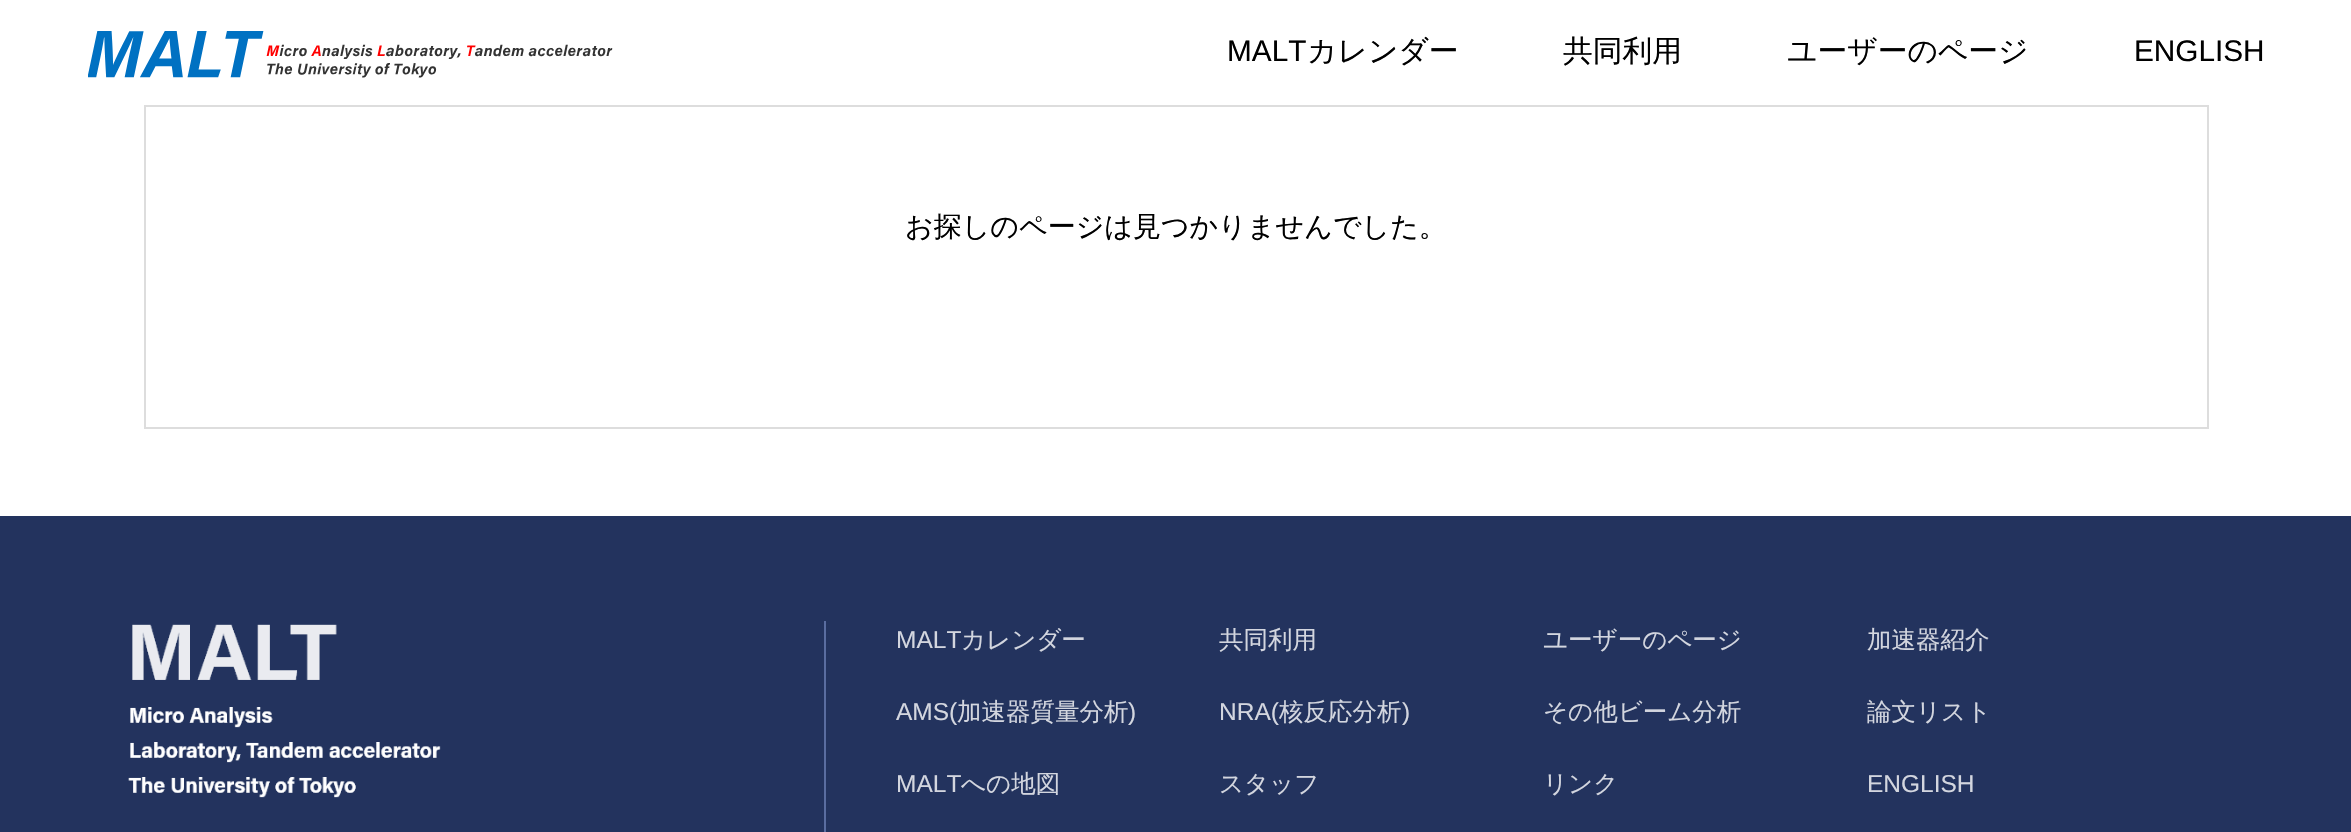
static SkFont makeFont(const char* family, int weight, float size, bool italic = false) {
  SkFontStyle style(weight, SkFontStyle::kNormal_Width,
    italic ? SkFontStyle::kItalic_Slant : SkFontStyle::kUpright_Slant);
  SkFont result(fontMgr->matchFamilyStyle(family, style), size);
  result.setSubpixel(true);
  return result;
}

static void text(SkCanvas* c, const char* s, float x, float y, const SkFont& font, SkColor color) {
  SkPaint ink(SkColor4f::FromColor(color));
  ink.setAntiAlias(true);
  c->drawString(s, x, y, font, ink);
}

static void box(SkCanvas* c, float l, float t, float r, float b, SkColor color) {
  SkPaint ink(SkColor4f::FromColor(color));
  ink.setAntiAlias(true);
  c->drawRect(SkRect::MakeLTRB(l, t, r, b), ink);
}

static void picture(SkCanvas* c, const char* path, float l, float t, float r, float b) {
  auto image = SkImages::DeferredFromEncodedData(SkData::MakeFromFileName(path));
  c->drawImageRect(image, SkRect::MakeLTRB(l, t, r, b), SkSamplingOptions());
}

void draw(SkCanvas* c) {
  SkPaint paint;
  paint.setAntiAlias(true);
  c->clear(0xffffffff);
  picture(c, "img_01.png", 88, 31, 613, 78);
  SkFont face1 = makeFont("Liberation Sans", 400, 29.75f);
  text(c, "MALT", 1227, 61, face1, 0xff000000);
  SkFont face2 = makeFont("WenQuanYi Zen Hei", 500, 29.75f);
  text(c, "カレンダー", 1307, 61, face2, 0xff000000);
  text(c, "共同利用", 1563, 61, face2, 0xff000000);
  text(c, "ユーザーのページ", 1787, 61, face2, 0xff000000);
  text(c, "ENGLISH", 2134, 61, face1, 0xff000000);
  paint.setStyle(SkPaint::kStroke_Style);
  paint.setStrokeWidth(2);
  paint.setColor(0xffdddddd);
  c->drawRect(SkRect::MakeLTRB(145, 106, 2208, 428), paint);
  SkFont face3 = makeFont("WenQuanYi Zen Hei", 500, 28);
  text(c, "お探しのページは見つかりませんでした。", 905, 236, face3, 0xff000000);
  box(c, 0, 516, 2351, 832, 0xff23335e);
  box(c, 824, 621, 826, 832, 0xff5a6da0);
  picture(c, "img_02.png", 128, 624, 441, 798);
  SkFont face4 = makeFont("Liberation Sans", 400, 24.5f);
  text(c, "MALT", 896, 648, face4, 0xffd3d6df);
  SkFont face5 = makeFont("WenQuanYi Zen Hei", 500, 24.5f);
  text(c, "カレンダー", 961, 648, face5, 0xffd3d6df);
  text(c, "共同利用", 1219, 648, face5, 0xffd3d6df);
  text(c, "ユーザーのページ", 1543, 648, face5, 0xffd3d6df);
  text(c, "加速器紹介", 1867, 648, face5, 0xffd3d6df);
  text(c, "AMS(", 896, 720, face4, 0xffd3d6df);
  text(c, "加速器質量分析", 957, 720, face5, 0xffd3d6df);
  text(c, ")", 1128, 720, face4, 0xffd3d6df);
  text(c, "NRA(", 1219, 720, face4, 0xffd3d6df);
  text(c, "核反応分析", 1279, 720, face5, 0xffd3d6df);
  text(c, ")", 1402, 720, face4, 0xffd3d6df);
  text(c, "その他ビーム分析", 1543, 720, face5, 0xffd3d6df);
  text(c, "論文リスト", 1867, 720, face5, 0xffd3d6df);
  text(c, "MALT", 896, 792, face4, 0xffd3d6df);
  text(c, "への地図", 961, 792, face5, 0xffd3d6df);
  text(c, "スタッフ", 1219, 792, face5, 0xffd3d6df);
  text(c, "リンク", 1543, 792, face5, 0xffd3d6df);
  text(c, "ENGLISH", 1867, 792, face4, 0xffd3d6df);
}
